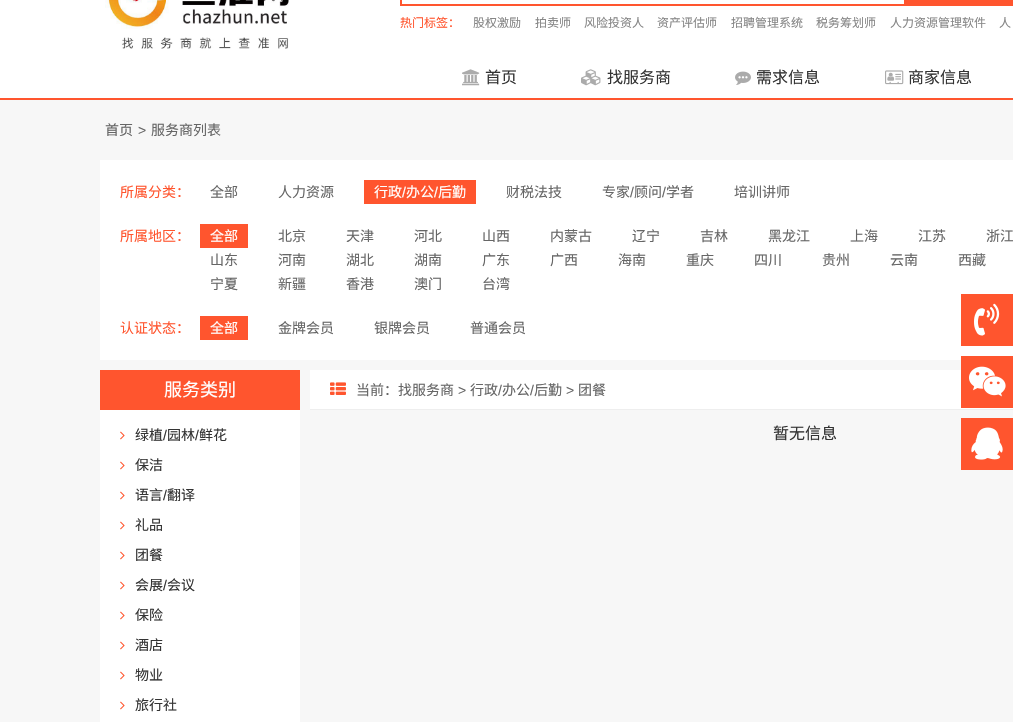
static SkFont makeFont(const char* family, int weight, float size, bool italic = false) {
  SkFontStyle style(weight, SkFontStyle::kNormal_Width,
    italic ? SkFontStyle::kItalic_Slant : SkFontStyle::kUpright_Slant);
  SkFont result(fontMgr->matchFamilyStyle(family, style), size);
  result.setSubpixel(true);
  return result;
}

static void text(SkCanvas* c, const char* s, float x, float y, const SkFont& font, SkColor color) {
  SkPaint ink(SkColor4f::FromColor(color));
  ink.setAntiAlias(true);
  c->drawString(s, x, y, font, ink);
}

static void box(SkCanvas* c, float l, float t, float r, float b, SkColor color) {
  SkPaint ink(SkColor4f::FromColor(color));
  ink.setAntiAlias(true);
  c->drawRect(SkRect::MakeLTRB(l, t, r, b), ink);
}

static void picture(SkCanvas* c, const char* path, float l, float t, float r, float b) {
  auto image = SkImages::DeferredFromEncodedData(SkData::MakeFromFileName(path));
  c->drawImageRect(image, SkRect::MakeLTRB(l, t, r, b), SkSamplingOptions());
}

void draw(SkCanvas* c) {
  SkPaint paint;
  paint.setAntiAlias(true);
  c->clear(0xffffffff);
  box(c, 0, 98, 1013, 100, 0xffff552e);
  picture(c, "img_01.png", 105, 0, 289, 49);
  paint.setStyle(SkPaint::kStroke_Style);
  paint.setStrokeWidth(2);
  paint.setColor(0xffff552e);
  c->drawRect(SkRect::MakeLTRB(401, -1, 905, 5), paint);
  box(c, 906, 0, 1013, 6, 0xffff552e);
  SkFont face1 = makeFont("Noto Sans CJK SC", 400, 12);
  text(c, "热门标签：", 400, 27, face1, 0xffff552e);
  text(c, "股权激励", 473, 27, face1, 0xff868686);
  text(c, "拍卖师", 535, 27, face1, 0xff868686);
  text(c, "风险投资人", 584, 27, face1, 0xff868686);
  text(c, "资产评估师", 657, 27, face1, 0xff868686);
  text(c, "招聘管理系统", 731, 27, face1, 0xff868686);
  text(c, "税务筹划师", 816, 27, face1, 0xff868686);
  text(c, "人力资源管理软件", 890, 27, face1, 0xff868686);
  text(c, "人", 999, 27, face1, 0xff868686);
  picture(c, "img_02.png", 462, 69, 480, 86);
  SkFont face2 = makeFont("Noto Sans CJK SC", 400, 16);
  text(c, "首页", 485, 83, face2, 0xff333333);
  picture(c, "img_03.png", 581, 69, 601, 86);
  text(c, "找服务商", 607, 83, face2, 0xff333333);
  picture(c, "img_04.png", 735, 71, 751, 85);
  text(c, "需求信息", 756, 83, face2, 0xff333333);
  picture(c, "img_05.png", 885, 70, 904, 85);
  text(c, "商家信息", 908, 83, face2, 0xff333333);
  box(c, 0, 100, 1013, 722, 0xfff7f7f7);
  SkFont face3 = makeFont("Noto Sans CJK SC", 400, 14);
  text(c, "首页", 105, 135, face3, 0xff666666);
  SkFont face4 = makeFont("Liberation Sans", 400, 14);
  text(c, ">", 138, 135, face4, 0xff666666);
  text(c, "服务商列表", 151, 135, face3, 0xff666666);
  box(c, 100, 160, 1013, 360, 0xffffffff);
  text(c, "所属分类：", 120, 197, face3, 0xffff552e);
  text(c, "全部", 210, 197, face3, 0xff666666);
  text(c, "人力资源", 278, 197, face3, 0xff666666);
  box(c, 364, 180, 476, 204, 0xffff552e);
  text(c, "行政", 374, 197, face3, 0xffffffff);
  text(c, "/", 402, 197, face4, 0xffffffff);
  text(c, "办公", 406, 197, face3, 0xffffffff);
  text(c, "/", 434, 197, face4, 0xffffffff);
  text(c, "后勤", 438, 197, face3, 0xffffffff);
  text(c, "财税法技", 506, 197, face3, 0xff666666);
  text(c, "专家", 602, 197, face3, 0xff666666);
  text(c, "/", 630, 197, face4, 0xff666666);
  text(c, "顾问", 634, 197, face3, 0xff666666);
  text(c, "/", 662, 197, face4, 0xff666666);
  text(c, "学者", 666, 197, face3, 0xff666666);
  text(c, "培训讲师", 734, 197, face3, 0xff666666);
  text(c, "所属地区：", 120, 241, face3, 0xffff552e);
  box(c, 200, 224, 248, 248, 0xffff552e);
  text(c, "全部", 210, 241, face3, 0xffffffff);
  text(c, "北京", 278, 241, face3, 0xff666666);
  text(c, "天津", 346, 241, face3, 0xff666666);
  text(c, "河北", 414, 241, face3, 0xff666666);
  text(c, "山西", 482, 241, face3, 0xff666666);
  text(c, "内蒙古", 550, 241, face3, 0xff666666);
  text(c, "辽宁", 632, 241, face3, 0xff666666);
  text(c, "吉林", 700, 241, face3, 0xff666666);
  text(c, "黑龙江", 768, 241, face3, 0xff666666);
  text(c, "上海", 850, 241, face3, 0xff666666);
  text(c, "江苏", 918, 241, face3, 0xff666666);
  text(c, "浙江", 986, 241, face3, 0xff666666);
  text(c, "山东", 210, 265, face3, 0xff666666);
  text(c, "河南", 278, 265, face3, 0xff666666);
  text(c, "湖北", 346, 265, face3, 0xff666666);
  text(c, "湖南", 414, 265, face3, 0xff666666);
  text(c, "广东", 482, 265, face3, 0xff666666);
  text(c, "广西", 550, 265, face3, 0xff666666);
  text(c, "海南", 618, 265, face3, 0xff666666);
  text(c, "重庆", 686, 265, face3, 0xff666666);
  text(c, "四川", 754, 265, face3, 0xff666666);
  text(c, "贵州", 822, 265, face3, 0xff666666);
  text(c, "云南", 890, 265, face3, 0xff666666);
  text(c, "西藏", 958, 265, face3, 0xff666666);
  text(c, "宁夏", 210, 289, face3, 0xff666666);
  text(c, "新疆", 278, 289, face3, 0xff666666);
  text(c, "香港", 346, 289, face3, 0xff666666);
  text(c, "澳门", 414, 289, face3, 0xff666666);
  text(c, "台湾", 482, 289, face3, 0xff666666);
  text(c, "认证状态：", 120, 333, face3, 0xffff552e);
  box(c, 200, 316, 248, 340, 0xffff552e);
  text(c, "全部", 210, 333, face3, 0xffffffff);
  text(c, "金牌会员", 278, 333, face3, 0xff666666);
  text(c, "银牌会员", 374, 333, face3, 0xff666666);
  text(c, "普通会员", 470, 333, face3, 0xff666666);
  box(c, 100, 410, 300, 722, 0xffffffff);
  box(c, 100, 370, 300, 410, 0xffff552e);
  SkFont face5 = makeFont("Noto Sans CJK SC", 400, 18);
  text(c, "服务类别", 164, 396, face5, 0xffffffff);
  picture(c, "img_06.png", 120, 431, 125, 440);
  text(c, "绿植", 135, 440, face3, 0xff333333);
  text(c, "/", 163, 440, face4, 0xff333333);
  text(c, "园林", 167, 440, face3, 0xff333333);
  text(c, "/", 195, 440, face4, 0xff333333);
  text(c, "鲜花", 199, 440, face3, 0xff333333);
  picture(c, "img_06.png", 120, 461, 125, 470);
  text(c, "保洁", 135, 470, face3, 0xff333333);
  picture(c, "img_06.png", 120, 491, 125, 500);
  text(c, "语言", 135, 500, face3, 0xff333333);
  text(c, "/", 163, 500, face4, 0xff333333);
  text(c, "翻译", 167, 500, face3, 0xff333333);
  picture(c, "img_06.png", 120, 521, 125, 530);
  text(c, "礼品", 135, 530, face3, 0xff333333);
  picture(c, "img_06.png", 120, 551, 125, 560);
  text(c, "团餐", 135, 560, face3, 0xff333333);
  picture(c, "img_06.png", 120, 581, 125, 590);
  text(c, "会展", 135, 590, face3, 0xff333333);
  text(c, "/", 163, 590, face4, 0xff333333);
  text(c, "会议", 167, 590, face3, 0xff333333);
  picture(c, "img_06.png", 120, 611, 125, 620);
  text(c, "保险", 135, 620, face3, 0xff333333);
  picture(c, "img_06.png", 120, 641, 125, 650);
  text(c, "酒店", 135, 650, face3, 0xff333333);
  picture(c, "img_06.png", 120, 671, 125, 680);
  text(c, "物业", 135, 680, face3, 0xff333333);
  picture(c, "img_06.png", 120, 701, 125, 710);
  text(c, "旅行社", 135, 710, face3, 0xff333333);
  box(c, 310, 370, 1013, 409, 0xffffffff);
  box(c, 310, 409, 1013, 410, 0xffeeeeee);
  picture(c, "img_07.png", 330, 382, 346, 395);
  text(c, "当前：找服务商", 356, 395, face3, 0xff666666);
  text(c, ">", 458, 395, face4, 0xff666666);
  text(c, "行政", 470, 395, face3, 0xff666666);
  text(c, "/", 498, 395, face4, 0xff666666);
  text(c, "办公", 502, 395, face3, 0xff666666);
  text(c, "/", 530, 395, face4, 0xff666666);
  text(c, "后勤", 534, 395, face3, 0xff666666);
  text(c, ">", 566, 395, face4, 0xff666666);
  text(c, "团餐", 578, 395, face3, 0xff666666);
  text(c, "暂无信息", 773, 439, face2, 0xff333333);
  box(c, 961, 294, 1013, 346, 0xffff552e);
  picture(c, "img_08.png", 974, 303, 1000, 336);
  box(c, 961, 356, 1013, 408, 0xffff552e);
  picture(c, "img_09.png", 969, 366, 1006, 397);
  box(c, 961, 418, 1013, 470, 0xffff552e);
  picture(c, "img_10.png", 971, 427, 1003, 460);
}
